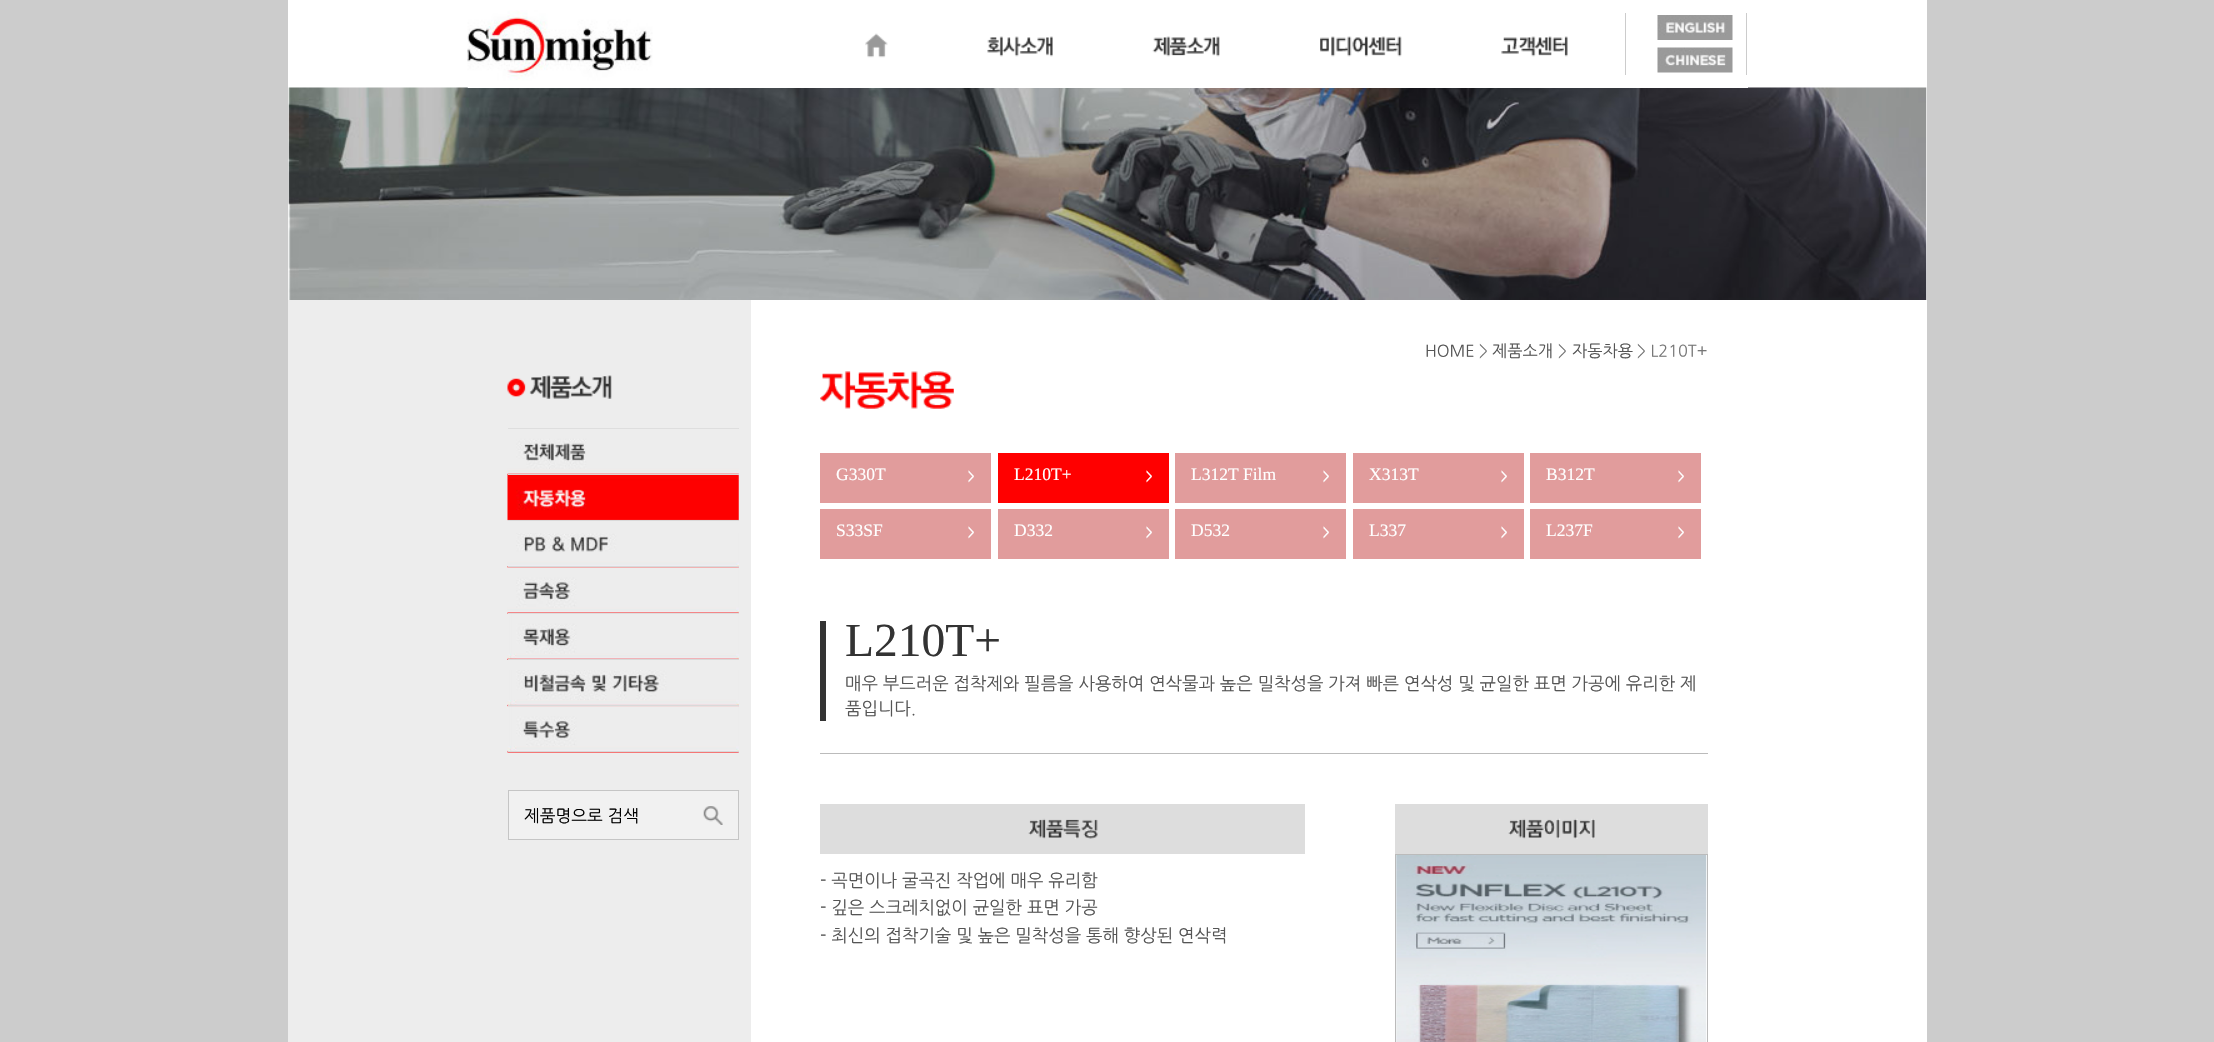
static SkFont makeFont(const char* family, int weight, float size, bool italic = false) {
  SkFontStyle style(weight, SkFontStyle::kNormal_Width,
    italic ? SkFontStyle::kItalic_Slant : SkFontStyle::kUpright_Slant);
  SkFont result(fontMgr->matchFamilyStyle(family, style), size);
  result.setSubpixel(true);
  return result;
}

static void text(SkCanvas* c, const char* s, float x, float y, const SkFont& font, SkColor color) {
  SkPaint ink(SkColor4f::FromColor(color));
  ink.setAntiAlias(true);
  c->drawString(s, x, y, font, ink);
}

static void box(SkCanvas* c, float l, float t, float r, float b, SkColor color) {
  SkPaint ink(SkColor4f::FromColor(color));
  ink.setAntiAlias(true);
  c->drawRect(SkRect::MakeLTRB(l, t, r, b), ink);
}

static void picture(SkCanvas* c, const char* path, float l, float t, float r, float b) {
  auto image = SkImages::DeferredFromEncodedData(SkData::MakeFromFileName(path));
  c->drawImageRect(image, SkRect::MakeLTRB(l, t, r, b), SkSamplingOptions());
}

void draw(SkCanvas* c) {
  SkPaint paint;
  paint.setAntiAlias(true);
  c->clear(0xffcccccc);
  box(c, 288, 0, 1927, 1042, 0xffffffff);
  picture(c, "img_01.png", 288, 87, 1927, 300);
  box(c, 468, 87, 1748, 88, 0xffffffff);
  picture(c, "img_02.png", 467, 10, 653, 88);
  picture(c, "img_03.png", 865, 33, 888, 58);
  picture(c, "img_04.png", 987, 36, 1053, 57);
  picture(c, "img_05.png", 1152, 36, 1220, 57);
  picture(c, "img_06.png", 1320, 36, 1402, 57);
  picture(c, "img_07.png", 1501, 36, 1568, 57);
  box(c, 1746, 13, 1747, 75, 0xffcccccc);
  box(c, 1625, 13, 1626, 75, 0xffcccccc);
  picture(c, "img_08.png", 1657, 15, 1733, 40);
  picture(c, "img_09.png", 1657, 47, 1733, 73);
  box(c, 288, 300, 751, 1042, 0xffededed);
  box(c, 508, 428, 739, 429, 0xffd9d9d9);
  picture(c, "img_10.png", 507, 375, 612, 399);
  picture(c, "img_11.png", 507, 428, 739, 475);
  box(c, 508, 474, 739, 475, 0xffd9d9d9);
  picture(c, "img_12.png", 507, 475, 739, 521);
  box(c, 508, 520, 739, 521, 0xffd9d9d9);
  picture(c, "img_13.png", 507, 533, 739, 568);
  box(c, 508, 566, 739, 567, 0xffd9d9d9);
  picture(c, "img_14.png", 507, 567, 739, 614);
  box(c, 508, 613, 739, 614, 0xffd9d9d9);
  picture(c, "img_15.png", 507, 613, 739, 660);
  box(c, 508, 659, 739, 660, 0xffd9d9d9);
  picture(c, "img_16.png", 507, 670, 739, 707);
  box(c, 508, 705, 739, 706, 0xffd9d9d9);
  picture(c, "img_17.png", 507, 706, 739, 753);
  box(c, 508, 751, 739, 752, 0xffd9d9d9);
  paint.setColor(0xfff1f1f1);
  c->drawRect(SkRect::MakeLTRB(508.5f, 790.5f, 738.5f, 839.5f), paint);
  paint.setStyle(SkPaint::kStroke_Style);
  paint.setStrokeWidth(1);
  paint.setColor(0xffc5c5c5);
  c->drawRect(SkRect::MakeLTRB(508.5f, 790.5f, 738.5f, 839.5f), paint);
  SkFont face1 = makeFont("NanumGothic", 400, 16.75f);
  text(c, "제품명으로 검색", 524, 821, face1, 0xff000000);
  picture(c, "img_18.png", 703, 806, 723, 825);
  SkFont face2 = makeFont("NanumGothic", 400, 16.25f);
  text(c, "HOME", 1425, 356, face2, 0xff555555);
  text(c, ">", 1479, 356, face2, 0xff767676);
  text(c, "제품소개", 1492, 356, face2, 0xff555555);
  text(c, ">", 1558, 356, face2, 0xff767676);
  text(c, "자동차용", 1572, 356, face2, 0xff555555);
  text(c, "> L210T+", 1637, 356, face2, 0xff767676);
  picture(c, "img_19.png", 820, 371, 954, 409);
  box(c, 820, 453, 991, 503, 0xffe19c9c);
  SkFont face3 = makeFont("Liberation Serif", 400, 17.5f);
  text(c, "G330T", 836, 480, face3, 0xffffffff);
  SkFont face4 = makeFont("NanumGothic", 700, 12);
  text(c, ">", 968, 480, face4, 0xffffffff);
  box(c, 998, 453, 1169, 503, 0xffff0000);
  text(c, "L210T+", 1014, 480, face3, 0xffffffff);
  text(c, ">", 1146, 480, face4, 0xffffffff);
  box(c, 1175, 453, 1346, 503, 0xffe19c9c);
  text(c, "L312T Film", 1191, 480, face3, 0xffffffff);
  text(c, ">", 1323, 480, face4, 0xffffffff);
  box(c, 1353, 453, 1524, 503, 0xffe19c9c);
  text(c, "X313T", 1369, 480, face3, 0xffffffff);
  text(c, ">", 1501, 480, face4, 0xffffffff);
  box(c, 1530, 453, 1701, 503, 0xffe19c9c);
  text(c, "B312T", 1546, 480, face3, 0xffffffff);
  text(c, ">", 1678, 480, face4, 0xffffffff);
  box(c, 820, 509, 991, 559, 0xffe19c9c);
  text(c, "S33SF", 836, 536, face3, 0xffffffff);
  text(c, ">", 968, 536, face4, 0xffffffff);
  box(c, 998, 509, 1169, 559, 0xffe19c9c);
  text(c, "D332", 1014, 536, face3, 0xffffffff);
  text(c, ">", 1146, 536, face4, 0xffffffff);
  box(c, 1175, 509, 1346, 559, 0xffe19c9c);
  text(c, "D532", 1191, 536, face3, 0xffffffff);
  text(c, ">", 1323, 536, face4, 0xffffffff);
  box(c, 1353, 509, 1524, 559, 0xffe19c9c);
  text(c, "L337", 1369, 536, face3, 0xffffffff);
  text(c, ">", 1501, 536, face4, 0xffffffff);
  box(c, 1530, 509, 1701, 559, 0xffe19c9c);
  text(c, "L237F", 1546, 536, face3, 0xffffffff);
  text(c, ">", 1678, 536, face4, 0xffffffff);
  box(c, 820, 753, 1708, 754, 0xffbbbbbb);
  box(c, 820, 621, 826, 721, 0xff333333);
  SkFont face5 = makeFont("Liberation Serif", 400, 47.5f);
  text(c, "L210T+", 845, 656, face5, 0xff333333);
  SkFont face6 = makeFont("NanumGothic", 400, 17.5f);
  text(c, "매우 부드러운 접착제와 필름을 사용하여 연삭물과 높은 밀착성을 가져 빠른 연삭성 및 균일한 표면 가공에 유리한 제", 845, 689, face6, 0xff555555);
  text(c, "품입니다.", 845, 714, face6, 0xff555555);
  box(c, 820, 804, 1305, 854, 0xffdddddd);
  picture(c, "img_20.png", 1028, 818, 1098, 839);
  text(c, "- 곡면이나 굴곡진 작업에 매우 유리함", 820, 886, face6, 0xff555555);
  text(c, "- 깊은 스크레치없이 균일한 표면 가공", 820, 913, face6, 0xff555555);
  text(c, "- 최신의 접착기술 및 높은 밀착성을 통해 향상된 연삭력", 820, 941, face6, 0xff555555);
  box(c, 1395, 804, 1708, 854, 0xffdddddd);
  picture(c, "img_21.png", 1508, 818, 1595, 839);
  paint.setColor(0xffbbbbbb);
  c->drawRect(SkRect::MakeLTRB(1395.5f, 854.5f, 1707.5f, 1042.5f), paint);
  picture(c, "img_22.png", 1396, 855, 1707, 1042);
}
